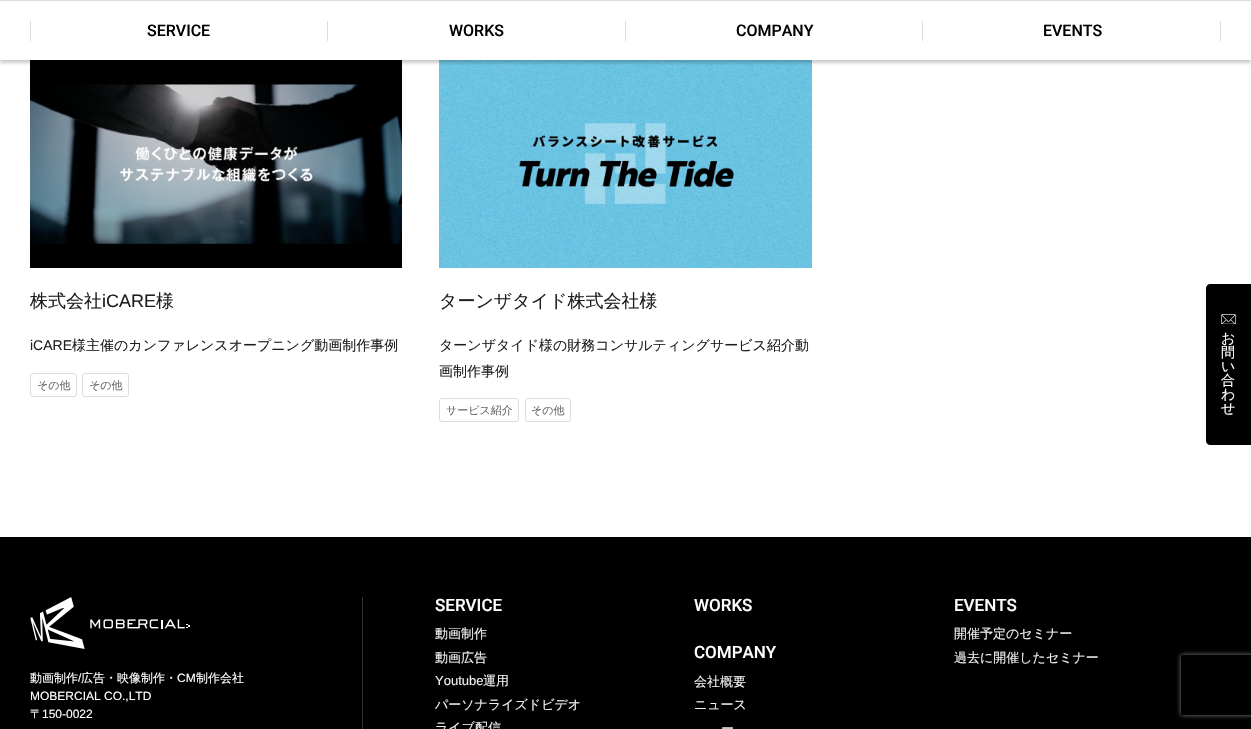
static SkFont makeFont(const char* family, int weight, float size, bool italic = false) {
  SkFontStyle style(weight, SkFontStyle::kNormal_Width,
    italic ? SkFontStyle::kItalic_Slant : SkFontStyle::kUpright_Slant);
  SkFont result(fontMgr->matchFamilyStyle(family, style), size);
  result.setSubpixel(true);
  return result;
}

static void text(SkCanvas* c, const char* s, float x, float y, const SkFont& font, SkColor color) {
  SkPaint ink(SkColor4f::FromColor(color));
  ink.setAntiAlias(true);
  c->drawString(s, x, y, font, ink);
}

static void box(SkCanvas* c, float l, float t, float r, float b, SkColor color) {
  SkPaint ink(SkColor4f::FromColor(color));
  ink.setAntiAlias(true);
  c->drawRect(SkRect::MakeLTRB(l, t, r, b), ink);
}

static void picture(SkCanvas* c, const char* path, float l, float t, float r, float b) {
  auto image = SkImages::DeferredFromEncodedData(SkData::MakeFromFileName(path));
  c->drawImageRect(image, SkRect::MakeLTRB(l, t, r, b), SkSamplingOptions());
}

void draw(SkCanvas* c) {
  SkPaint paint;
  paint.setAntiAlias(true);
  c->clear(0xffffffff);
  picture(c, "img_02.png", 30, 60, 402, 268);
  picture(c, "img_03.png", 439, 60, 812, 268);
  paint.setColor(0x33040000);
  paint.setMaskFilter(SkMaskFilter::MakeBlur(kNormal_SkBlurStyle, 1.5f));
  c->drawRect(SkRect::MakeLTRB(0, 3, 1251, 63), paint);
  paint.setMaskFilter(nullptr);
  box(c, 0, 1, 1251, 60, 0xffffffff);
  box(c, 0, 0, 1251, 1, 0xffdddddd);
  box(c, 30, 21, 31, 41, 0xffdddddd);
  SkFont face1 = makeFont("Roboto", 500, 16);
  text(c, "SERVICE", 147, 36, face1, 0xff000000);
  box(c, 327, 21, 328, 41, 0xffdddddd);
  text(c, "WORKS", 449, 36, face1, 0xff000000);
  box(c, 625, 21, 626, 41, 0xffdddddd);
  text(c, "COMPANY", 736, 36, face1, 0xff000000);
  box(c, 922, 21, 923, 41, 0xffdddddd);
  text(c, "EVENTS", 1043, 36, face1, 0xff000000);
  box(c, 1220, 21, 1221, 41, 0xffdddddd);
  paint.setColor(0xff000000);
  c->drawPath(SkPathBuilder().moveTo(1210, 284).lineTo(1251, 284).lineTo(1251, 445).lineTo(1210, 445).cubicTo(1208, 445, 1206, 443, 1206, 441).lineTo(1206, 288).cubicTo(1206, 286, 1208, 284, 1210, 284).close().detach(), paint);
  picture(c, "img_01.png", 1221, 314, 1236, 324);
  SkFont face2 = makeFont("WenQuanYi Zen Hei", 500, 14);
  text(c, "お", 1221, 343, face2, 0xffffffff);
  text(c, "問", 1221, 357, face2, 0xffffffff);
  text(c, "い", 1221, 371, face2, 0xffffffff);
  text(c, "合", 1221, 385, face2, 0xffffffff);
  text(c, "わ", 1221, 399, face2, 0xffffffff);
  text(c, "せ", 1221, 413, face2, 0xffffffff);
  SkFont face3 = makeFont("WenQuanYi Zen Hei", 500, 18);
  text(c, "株式会社", 30, 307, face3, 0xff1e1e1e);
  SkFont face4 = makeFont("Liberation Sans", 400, 18);
  text(c, "iCARE", 102, 307, face4, 0xff1e1e1e);
  text(c, "様", 156, 307, face3, 0xff1e1e1e);
  SkFont face5 = makeFont("Liberation Sans", 400, 14);
  text(c, "iCARE", 30, 350, face5, 0xff1e1e1e);
  text(c, "様主催のカンファレンスオープニング動画制作事例", 72, 350, face2, 0xff1e1e1e);
  paint.setStyle(SkPaint::kStroke_Style);
  paint.setStrokeWidth(1);
  paint.setColor(0xffdddddd);
  c->drawRoundRect(SkRect::MakeLTRB(30.5f, 373.5f, 76.5f, 396.5f), 2.5f, 2.5f, paint);
  SkFont face6 = makeFont("WenQuanYi Zen Hei", 500, 11);
  text(c, "その他", 37, 389, face6, 0xff666666);
  c->drawRoundRect(SkRect::MakeLTRB(82.5f, 373.5f, 128.5f, 396.5f), 2.5f, 2.5f, paint);
  text(c, "その他", 89, 389, face6, 0xff666666);
  text(c, "ターンザタイド株式会社様", 439, 307, face3, 0xff1e1e1e);
  text(c, "ターンザタイド様の財務コンサルティングサービス紹介動", 439, 350, face2, 0xff1e1e1e);
  text(c, "画制作事例", 439, 376, face2, 0xff1e1e1e);
  c->drawRoundRect(SkRect::MakeLTRB(439.5f, 398.5f, 518.5f, 421.5f), 2.5f, 2.5f, paint);
  text(c, "サービス紹介", 446, 414, face6, 0xff666666);
  c->drawRoundRect(SkRect::MakeLTRB(525.5f, 398.5f, 570.5f, 421.5f), 2.5f, 2.5f, paint);
  text(c, "その他", 531, 414, face6, 0xff666666);
  box(c, 0, 537, 1251, 729, 0xff000000);
  box(c, 362, 597, 363, 729, 0xff333333);
  picture(c, "img_04.png", 30, 597, 190, 649);
  SkFont face7 = makeFont("WenQuanYi Zen Hei", 500, 12);
  text(c, "動画制作", 30, 682, face7, 0xffffffff);
  SkFont face8 = makeFont("Liberation Sans", 400, 12);
  text(c, "/", 78, 682, face8, 0xffffffff);
  text(c, "広告・映像制作・", 81, 682, face7, 0xffffffff);
  text(c, "CM", 177, 682, face8, 0xffffffff);
  text(c, "制作会社", 196, 682, face7, 0xffffffff);
  text(c, "MOBERCIAL CO.,LTD", 30, 700, face8, 0xffffffff);
  text(c, "〒", 30, 718, face7, 0xffffffff);
  text(c, "150-0022", 42, 718, face8, 0xffffffff);
  SkFont face9 = makeFont("Roboto", 500, 17);
  text(c, "SERVICE", 435, 611, face9, 0xffffffff);
  SkFont face10 = makeFont("WenQuanYi Zen Hei", 500, 13);
  text(c, "動画制作", 435, 638, face10, 0xfff0f0f0);
  text(c, "動画広告", 435, 662, face10, 0xfff0f0f0);
  SkFont face11 = makeFont("Liberation Sans", 400, 13);
  text(c, "Youtube", 435, 685, face11, 0xfff0f0f0);
  text(c, "運用", 483, 685, face10, 0xfff0f0f0);
  text(c, "パーソナライズドビデオ", 435, 709, face10, 0xfff0f0f0);
  text(c, "ライブ配信", 435, 732, face10, 0xfff0f0f0);
  text(c, "WORKS", 694, 611, face9, 0xffffffff);
  text(c, "COMPANY", 694, 658, face9, 0xffffffff);
  text(c, "会社概要", 694, 686, face10, 0xfff0f0f0);
  text(c, "ニュース", 694, 709, face10, 0xfff0f0f0);
  text(c, "ー", 721, 733, face10, 0xfff0f0f0);
  text(c, "EVENTS", 954, 611, face9, 0xffffffff);
  text(c, "開催予定のセミナー", 954, 638, face10, 0xfff0f0f0);
  text(c, "過去に開催したセミナー", 954, 662, face10, 0xfff0f0f0);
  c->save();
  c->clipPath(SkPathBuilder(SkPathFillType::kEvenOdd).moveTo(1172, 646).lineTo(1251, 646).lineTo(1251, 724).lineTo(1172, 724).close().moveTo(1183, 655).lineTo(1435, 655).cubicTo(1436, 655, 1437, 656, 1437, 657).lineTo(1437, 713).cubicTo(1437, 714, 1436, 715, 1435, 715).lineTo(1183, 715).cubicTo(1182, 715, 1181, 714, 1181, 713).lineTo(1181, 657).cubicTo(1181, 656, 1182, 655, 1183, 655).close().detach(), true);
  paint.setStyle(SkPaint::kFill_Style);
  paint.setColor(0xff808080);
  paint.setMaskFilter(SkMaskFilter::MakeBlur(kNormal_SkBlurStyle, 2.5f));
  c->drawRoundRect(SkRect::MakeLTRB(1181, 655, 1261, 715), 2, 2, paint);
  paint.setMaskFilter(nullptr);
  c->restore();
}
